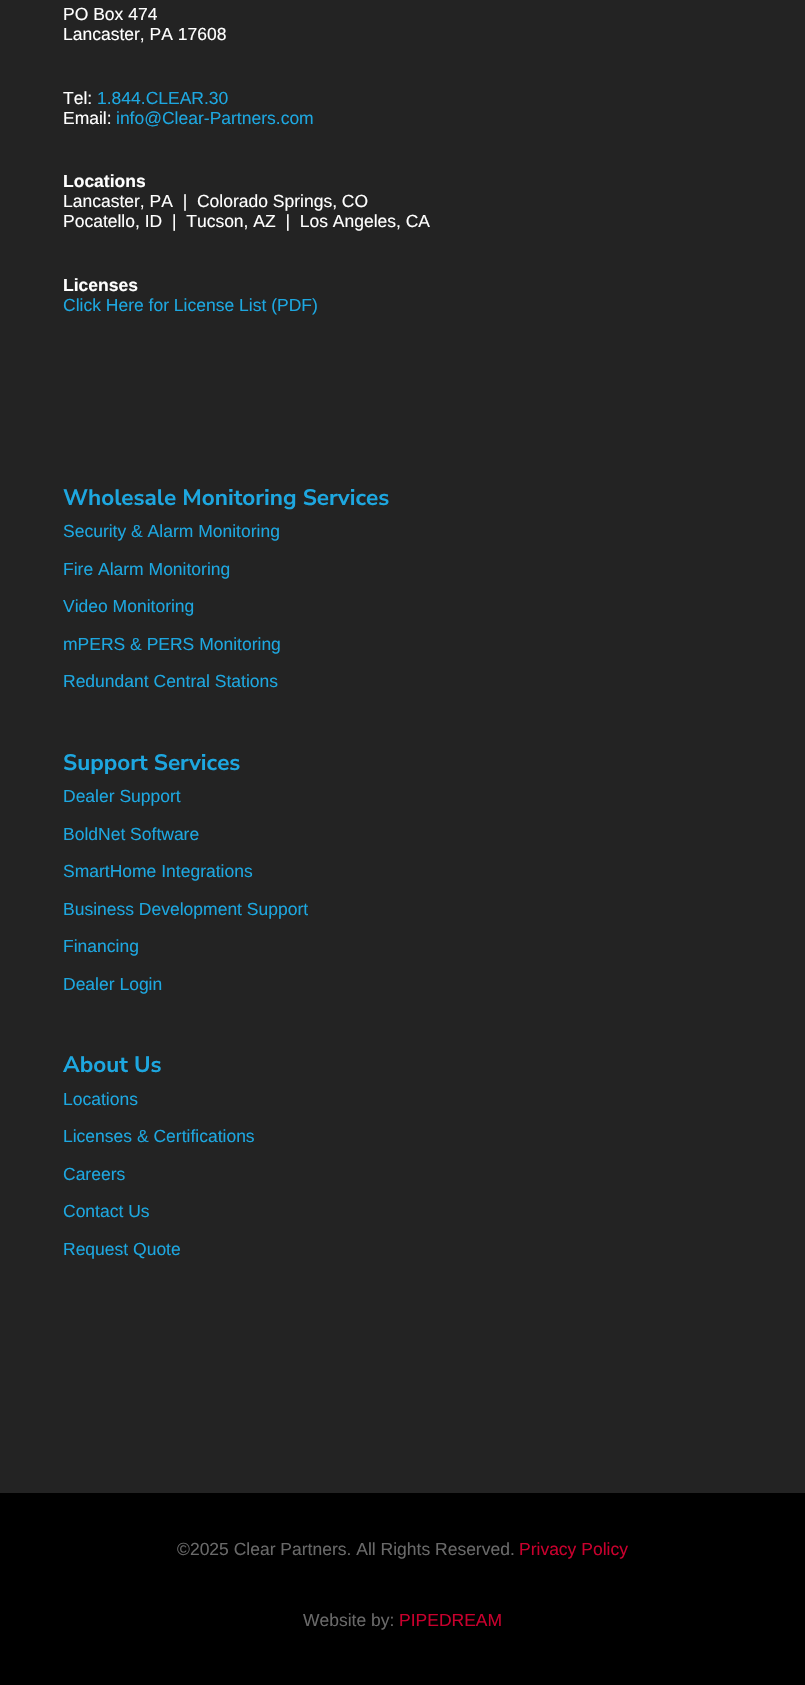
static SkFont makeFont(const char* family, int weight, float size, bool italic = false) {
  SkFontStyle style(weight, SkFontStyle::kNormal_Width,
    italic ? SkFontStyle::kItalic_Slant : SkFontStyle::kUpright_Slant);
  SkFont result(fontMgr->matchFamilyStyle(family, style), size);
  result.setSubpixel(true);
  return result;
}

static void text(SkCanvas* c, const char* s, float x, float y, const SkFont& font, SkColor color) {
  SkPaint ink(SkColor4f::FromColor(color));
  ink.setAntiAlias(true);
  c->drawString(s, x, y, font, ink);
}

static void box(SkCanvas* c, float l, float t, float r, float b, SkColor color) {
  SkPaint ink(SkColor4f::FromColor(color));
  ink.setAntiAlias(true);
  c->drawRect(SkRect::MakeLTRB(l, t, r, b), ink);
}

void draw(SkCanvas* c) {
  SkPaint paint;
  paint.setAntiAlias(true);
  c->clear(0xff232323);
  SkFont face1 = makeFont("Liberation Sans", 400, 17.5f);
  text(c, "PO Box 474", 63, 20, face1, 0xffffffff);
  text(c, "Lancaster, PA 17608", 63, 40, face1, 0xffffffff);
  text(c, "Tel:", 63, 104, face1, 0xffffffff);
  text(c, "1.844.CLEAR.30", 97, 104, face1, 0xff1da7e0);
  text(c, "Email:", 63, 124, face1, 0xffffffff);
  text(c, "info@Clear-Partners.com", 116, 124, face1, 0xff1da7e0);
  SkFont face2 = makeFont("Liberation Sans", 700, 17.5f);
  text(c, "Locations", 63, 187, face2, 0xffffffff);
  text(c, "Lancaster, PA  |  Colorado Springs, CO", 63, 207, face1, 0xffffffff);
  text(c, "Pocatello, ID  |  Tucson, AZ  |  Los Angeles, CA", 63, 227, face1, 0xffffffff);
  text(c, "Licenses", 63, 291, face2, 0xffffffff);
  text(c, "Click Here for License List (PDF)", 63, 311, face1, 0xff1da7e0);
  SkFont face3 = makeFont("Nunito Sans", 700, 22.5f);
  text(c, "Wholesale Monitoring Services", 63, 505, face3, 0xff1da7e0);
  text(c, "Security & Alarm Monitoring", 63, 537, face1, 0xff1da7e0);
  text(c, "Fire Alarm Monitoring", 63, 575, face1, 0xff1da7e0);
  text(c, "Video Monitoring", 63, 612, face1, 0xff1da7e0);
  text(c, "mPERS & PERS Monitoring", 63, 650, face1, 0xff1da7e0);
  text(c, "Redundant Central Stations", 63, 687, face1, 0xff1da7e0);
  text(c, "Support Services", 63, 770, face3, 0xff1da7e0);
  text(c, "Dealer Support", 63, 802, face1, 0xff1da7e0);
  text(c, "BoldNet Software", 63, 840, face1, 0xff1da7e0);
  text(c, "SmartHome Integrations", 63, 877, face1, 0xff1da7e0);
  text(c, "Business Development Support", 63, 915, face1, 0xff1da7e0);
  text(c, "Financing", 63, 952, face1, 0xff1da7e0);
  text(c, "Dealer Login", 63, 990, face1, 0xff1da7e0);
  text(c, "About Us", 63, 1072, face3, 0xff1da7e0);
  text(c, "Locations", 63, 1105, face1, 0xff1da7e0);
  text(c, "Licenses & Certifications", 63, 1142, face1, 0xff1da7e0);
  text(c, "Careers", 63, 1180, face1, 0xff1da7e0);
  text(c, "Contact Us", 63, 1217, face1, 0xff1da7e0);
  text(c, "Request Quote", 63, 1255, face1, 0xff1da7e0);
  box(c, 0, 1493, 805, 1685, 0xff000000);
  text(c, "©2025 Clear Partners. All Rights Reserved.", 177, 1555, face1, 0xff696969);
  text(c, "Privacy Policy", 519, 1555, face1, 0xffc8002d);
  text(c, "Website by:", 303, 1626, face1, 0xff696969);
  text(c, "PIPEDREAM", 399, 1626, face1, 0xffc8002d);
}
